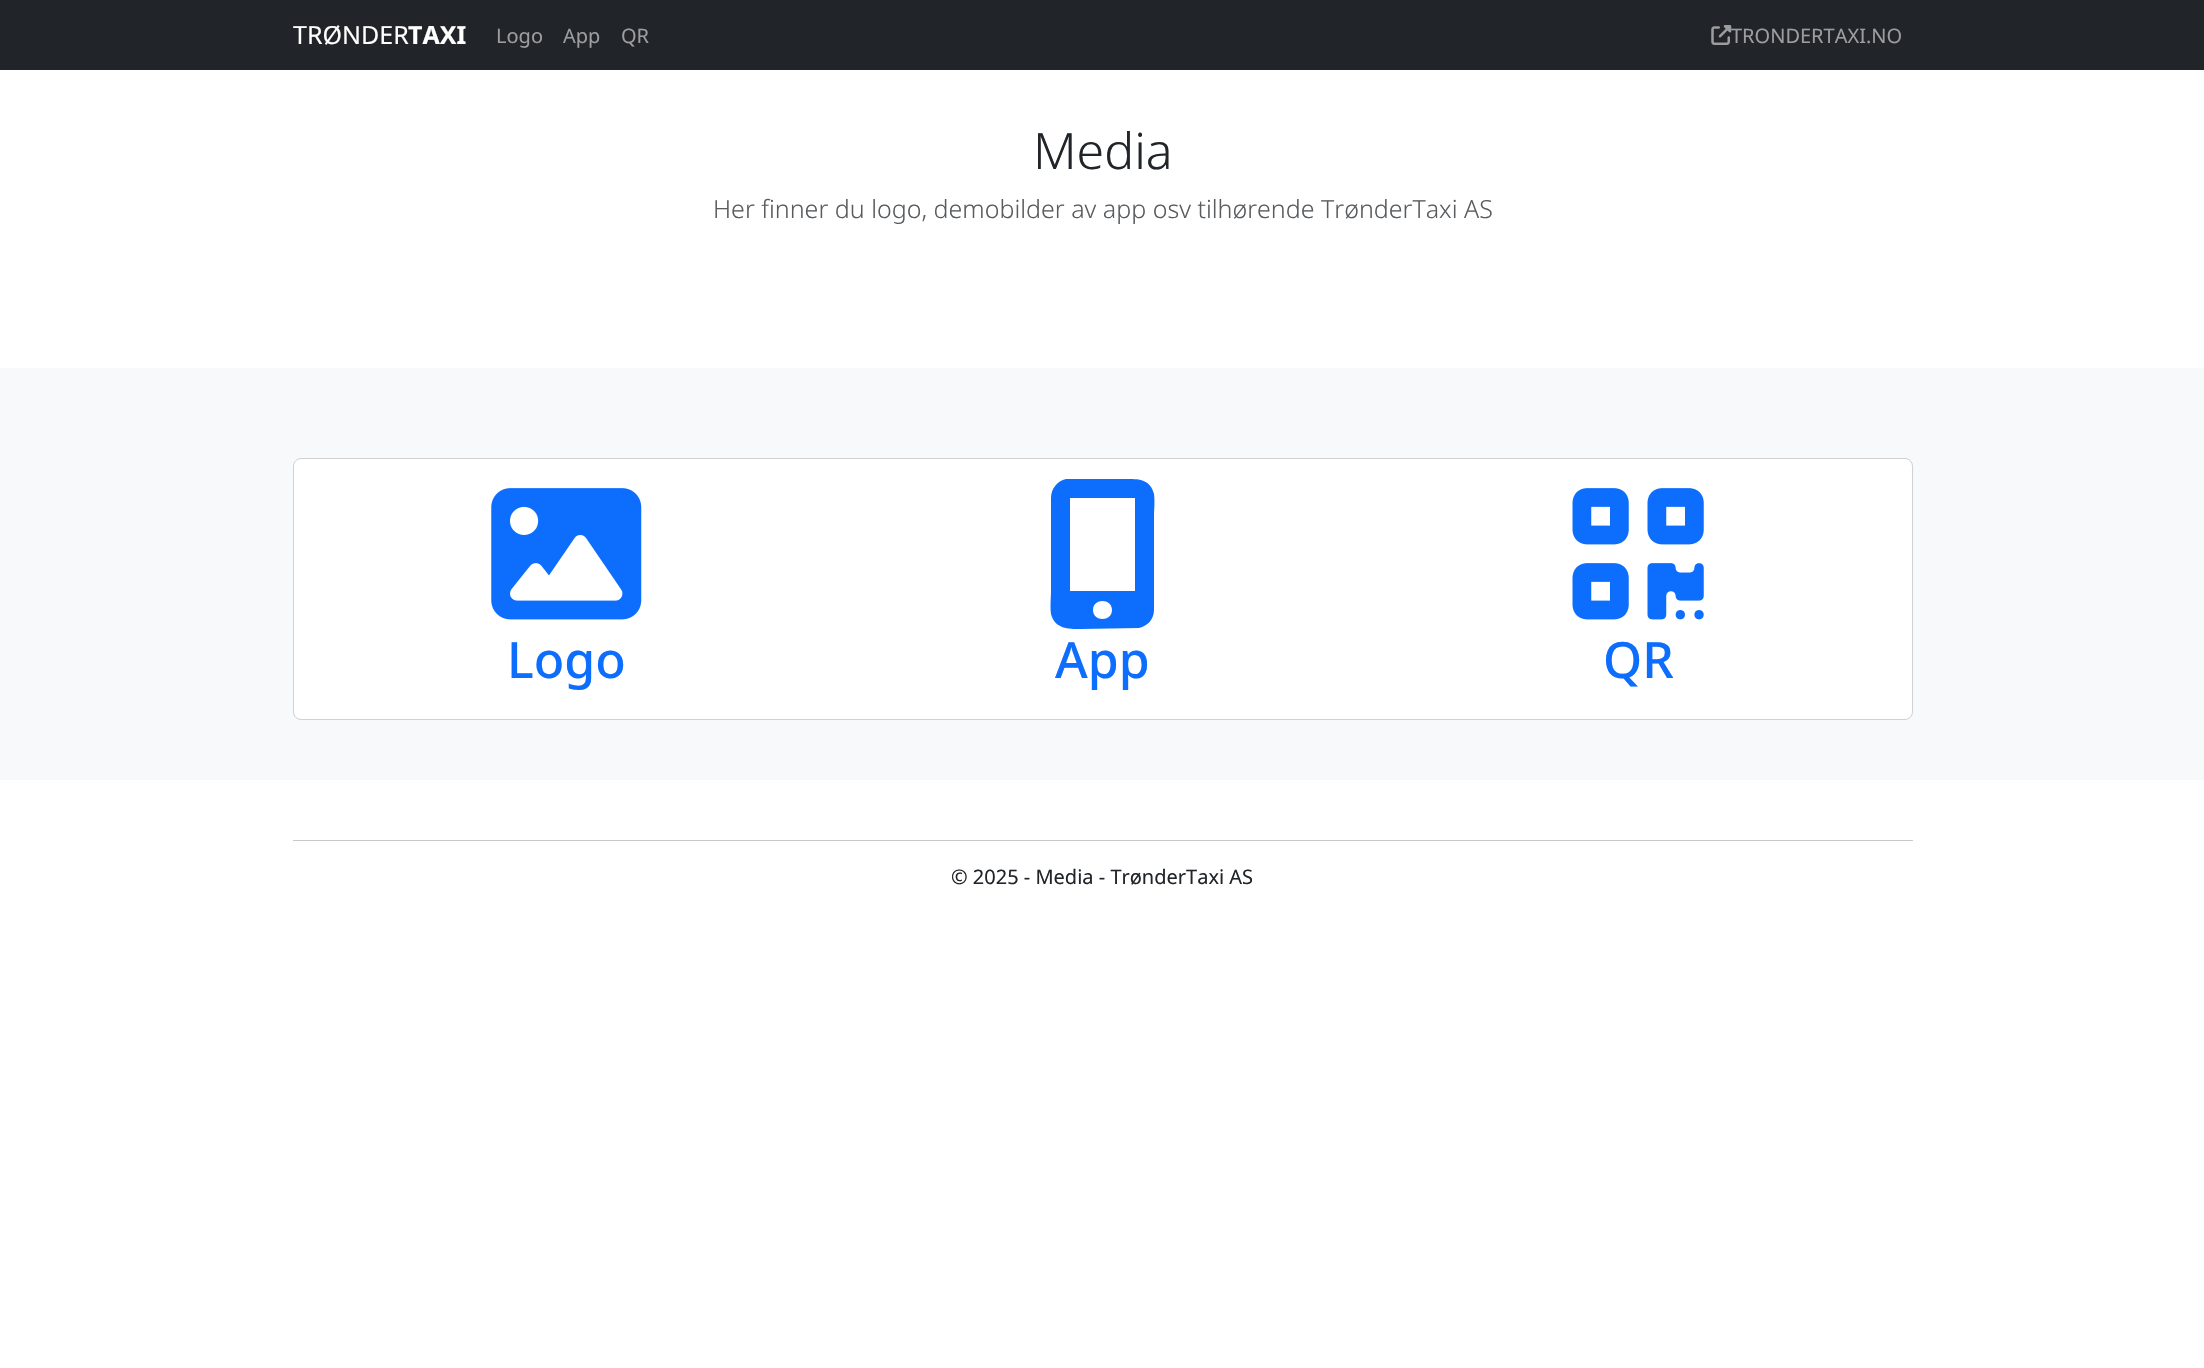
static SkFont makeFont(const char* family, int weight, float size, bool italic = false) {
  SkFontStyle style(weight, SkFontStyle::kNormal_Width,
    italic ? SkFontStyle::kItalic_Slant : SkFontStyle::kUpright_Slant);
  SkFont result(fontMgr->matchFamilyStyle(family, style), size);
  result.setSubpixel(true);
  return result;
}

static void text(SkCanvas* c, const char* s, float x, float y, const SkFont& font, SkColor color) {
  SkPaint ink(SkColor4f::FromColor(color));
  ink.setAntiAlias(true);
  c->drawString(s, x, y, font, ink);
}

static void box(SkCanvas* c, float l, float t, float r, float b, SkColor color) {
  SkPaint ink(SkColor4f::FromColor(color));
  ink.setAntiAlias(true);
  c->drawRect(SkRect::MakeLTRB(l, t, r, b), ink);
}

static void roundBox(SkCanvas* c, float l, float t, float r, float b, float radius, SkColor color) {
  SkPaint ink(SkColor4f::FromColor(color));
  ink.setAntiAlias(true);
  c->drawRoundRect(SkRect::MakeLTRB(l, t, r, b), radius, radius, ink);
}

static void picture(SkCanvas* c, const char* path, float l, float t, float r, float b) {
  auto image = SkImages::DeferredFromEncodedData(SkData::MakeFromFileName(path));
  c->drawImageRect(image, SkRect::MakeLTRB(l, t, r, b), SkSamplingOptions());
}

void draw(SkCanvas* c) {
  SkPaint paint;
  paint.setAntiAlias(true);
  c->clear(0xffffffff);
  box(c, 0, 0, 2204, 70, 0xff212529);
  SkFont face1 = makeFont("Noto Sans", 400, 25);
  text(c, "TRØNDER", 293, 44, face1, 0xffffffff);
  SkFont face2 = makeFont("Noto Sans", 700, 25);
  text(c, "TAXI", 408, 44, face2, 0xffffffff);
  SkFont face3 = makeFont("Noto Sans", 400, 20);
  text(c, "Logo", 496, 43, face3, 0xff9b9d9f);
  text(c, "App", 563, 43, face3, 0xff9b9d9f);
  text(c, "QR", 621, 43, face3, 0xff9b9d9f);
  picture(c, "img_01.png", 1711, 25, 1732, 45);
  text(c, "TRONDERTAXI.NO", 1731, 43, face3, 0xff9b9d9f);
  SkFont face4 = makeFont("Noto Sans", 300, 50);
  text(c, "Media", 1033, 169, face4, 0xff212529);
  SkFont face5 = makeFont("Noto Sans", 300, 25);
  text(c, "Her finner du logo, demobilder av app osv tilhørende TrønderTaxi AS", 713, 218, face5, 0xff595c5f);
  box(c, 0, 368, 2204, 780, 0xfff8f9fa);
  roundBox(c, 293, 458, 1913, 720, 8, 0xffffffff);
  paint.setStyle(SkPaint::kStroke_Style);
  paint.setStrokeWidth(1);
  paint.setColor(0x2e000000);
  c->drawRoundRect(SkRect::MakeLTRB(293.5f, 458.5f, 1912.5f, 719.5f), 7.5f, 7.5f, paint);
  picture(c, "img_02.png", 491, 488, 642, 620);
  SkFont face6 = makeFont("Noto Sans", 500, 50);
  text(c, "Logo", 507, 678, face6, 0xff0d6efd);
  paint.setStyle(SkPaint::kFill_Style);
  paint.setColor(0xff0d6efd);
  c->drawPath(SkPathBuilder().moveTo(1051, 498).cubicTo(1051, 489, 1057, 481, 1066, 479).lineTo(1124, 479).cubicTo(1137, 479, 1150, 478, 1154, 494).cubicTo(1155, 501, 1154, 512, 1154, 516).lineTo(1154, 610).cubicTo(1154, 619, 1148, 626, 1139, 628).lineTo(1081, 629).cubicTo(1068, 629, 1055, 629, 1051, 614).cubicTo(1050, 607, 1051, 596, 1051, 591).close().moveTo(1112, 610).cubicTo(1112, 598, 1093, 598, 1093, 610).cubicTo(1093, 622, 1112, 622, 1112, 610).close().moveTo(1135, 498).lineTo(1070, 498).lineTo(1135, 498).lineTo(1070, 498).lineTo(1070, 591).lineTo(1135, 591).close().detach(), paint);
  text(c, "App", 1055, 678, face6, 0xff0d6efd);
  picture(c, "img_03.png", 1572, 488, 1704, 620);
  text(c, "QR", 1603, 678, face6, 0xff0d6efd);
  box(c, 293, 840, 1913, 841, 0xffc8c9ca);
  text(c, "© 2025 - Media - TrønderTaxi AS", 951, 884, face3, 0xff212529);
}
